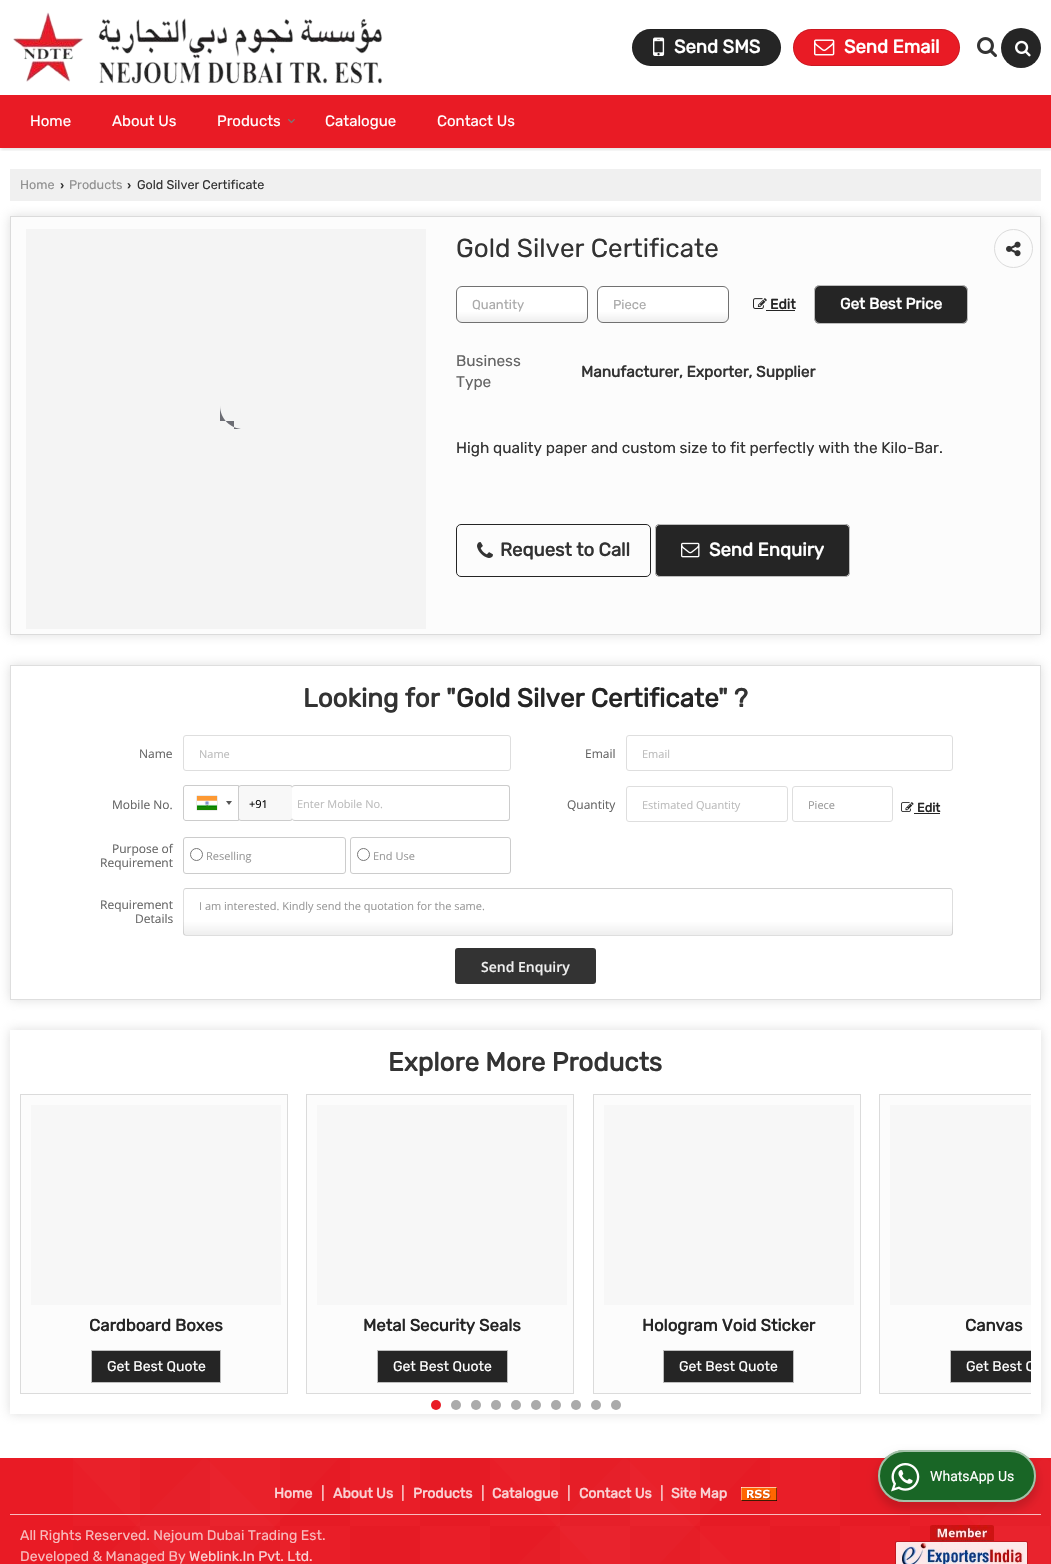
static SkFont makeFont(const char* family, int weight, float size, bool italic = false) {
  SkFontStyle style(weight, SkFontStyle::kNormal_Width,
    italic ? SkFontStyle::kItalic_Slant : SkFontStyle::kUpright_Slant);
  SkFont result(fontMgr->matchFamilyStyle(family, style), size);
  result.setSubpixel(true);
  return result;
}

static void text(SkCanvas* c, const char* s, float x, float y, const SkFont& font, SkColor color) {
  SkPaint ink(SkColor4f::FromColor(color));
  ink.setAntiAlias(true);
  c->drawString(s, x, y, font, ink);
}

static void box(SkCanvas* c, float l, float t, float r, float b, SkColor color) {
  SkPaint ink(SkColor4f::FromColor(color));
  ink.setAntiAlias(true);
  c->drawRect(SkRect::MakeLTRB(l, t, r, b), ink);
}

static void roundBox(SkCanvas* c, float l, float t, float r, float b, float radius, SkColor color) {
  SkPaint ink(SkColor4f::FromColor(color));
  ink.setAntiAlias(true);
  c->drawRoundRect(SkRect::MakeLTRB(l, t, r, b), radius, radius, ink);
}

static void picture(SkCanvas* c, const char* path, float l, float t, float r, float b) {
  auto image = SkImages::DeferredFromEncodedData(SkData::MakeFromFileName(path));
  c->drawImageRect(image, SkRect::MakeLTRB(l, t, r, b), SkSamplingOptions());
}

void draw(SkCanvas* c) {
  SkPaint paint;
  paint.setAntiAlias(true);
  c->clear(0xffffffff);
  c->save();
  c->clipRect(SkRect::MakeLTRB(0, 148, 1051, 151));
  paint.setColor(0x1a000000);
  paint.setMaskFilter(SkMaskFilter::MakeBlur(kNormal_SkBlurStyle, 1.5f));
  c->drawRect(SkRect::MakeLTRB(1, 2, 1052, 150), paint);
  paint.setMaskFilter(nullptr);
  c->restore();
  picture(c, "img_01.png", 13, 12, 383, 84);
  roundBox(c, 632, 29, 781, 66, 18.5f, 0xff252525);
  paint.setStyle(SkPaint::kStroke_Style);
  paint.setStrokeWidth(1);
  paint.setColor(0x21000000);
  c->drawRoundRect(SkRect::MakeLTRB(632.5f, 29.5f, 780.5f, 65.5f), 18, 18, paint);
  picture(c, "img_02.png", 653, 37, 665, 56);
  SkFont face1 = makeFont("Rubik", 700, 18.5f);
  text(c, "Send SMS", 674, 53, face1, 0xffffffff);
  roundBox(c, 793, 29, 960, 66, 18.5f, 0xffe91b25);
  c->drawRoundRect(SkRect::MakeLTRB(793.5f, 29.5f, 959.5f, 65.5f), 18, 18, paint);
  picture(c, "img_03.png", 814, 39, 835, 56);
  text(c, "Send Email", 844, 53, face1, 0xffffffff);
  picture(c, "img_04.png", 977, 37, 997, 58);
  paint.setStyle(SkPaint::kFill_Style);
  paint.setColor(0xff252525);
  c->drawCircle(1021, 48, 20, paint);
  picture(c, "img_05.png", 1015, 40, 1031, 57);
  box(c, 0, 95, 1051, 148, 0xffe91b25);
  SkFont face2 = makeFont("Rubik", 300, 15);
  text(c, "Home", 30, 126, face2, 0xffffffff);
  text(c, "About Us", 112, 126, face2, 0xffffffff);
  text(c, "Products", 217, 126, face2, 0xffffffff);
  picture(c, "img_06.png", 288, 119, 295, 124);
  text(c, "Catalogue", 325, 126, face2, 0xffffffff);
  text(c, "Contact Us", 437, 126, face2, 0xffffffff);
  box(c, 10, 169, 1041, 201, 0xfff0f0f0);
  SkFont face3 = makeFont("Rubik", 300, 12.6f);
  text(c, "Home", 20, 189, face3, 0xff909090);
  SkFont face4 = makeFont("Liberation Sans", 700, 12.6f);
  text(c, "›", 60, 189, face4, 0xff333333);
  text(c, "Products", 69, 189, face3, 0xff909090);
  text(c, "›", 127, 189, face4, 0xff333333);
  text(c, "Gold Silver Certificate", 137, 189, face3, 0xff333333);
  paint.setColor(0xabcccccc);
  paint.setMaskFilter(SkMaskFilter::MakeBlur(kNormal_SkBlurStyle, 5));
  c->drawRect(SkRect::MakeLTRB(10, 216, 1041, 635), paint);
  paint.setMaskFilter(nullptr);
  paint.setColor(0xfffcfcfc);
  c->drawRect(SkRect::MakeLTRB(10.5f, 216.5f, 1040.5f, 634.5f), paint);
  paint.setStyle(SkPaint::kStroke_Style);
  paint.setColor(0xffdbdbdb);
  c->drawRect(SkRect::MakeLTRB(10.5f, 216.5f, 1040.5f, 634.5f), paint);
  box(c, 26, 229, 426, 629, 0xfff4f4f4);
  paint.setStyle(SkPaint::kFill_Style);
  paint.setColor(0xff6c6d74);
  c->drawPath(SkPathBuilder().moveTo(220, 421).lineTo(234, 421).lineTo(234, 429).lineTo(243.5f, 429).cubicTo(230.5f, 429, 220, 418.5f, 220, 405.5f).close().detach(), paint);
  SkFont face5 = makeFont("Rubik", 300, 26);
  text(c, "Gold Silver Certificate", 456, 257, face5, 0xff333333);
  paint.setStyle(SkPaint::kStroke_Style);
  paint.setColor(0xffdbdbdb);
  c->drawCircle(1013.5f, 248.5f, 19, paint);
  picture(c, "img_07.png", 1006, 241, 1021, 257);
  c->save();
  c->clipPath(SkPathBuilder().moveTo(462, 286).lineTo(582, 286).cubicTo(585.5f, 286, 588, 288.5f, 588, 292).lineTo(588, 317).cubicTo(588, 320.5f, 585.5f, 323, 582, 323).lineTo(462, 323).cubicTo(458.5f, 323, 456, 320.5f, 456, 317).lineTo(456, 292).cubicTo(456, 288.5f, 458.5f, 286, 462, 286).close().detach(), true);
  paint.setStyle(SkPaint::kFill_Style);
  {
    const SkColor colors[] = {0xffffffff, 0xffeeeeee};
    const float stops[] = {0.7f, 1};
    const SkPoint ends[] = {{522, 287}, {522, 322}};
    paint.setShader(SkGradientShader::MakeLinear(ends, colors, stops, 2, SkTileMode::kClamp));
    paint.setAlpha(255);
  }
  c->drawRect(SkRect::MakeLTRB(456, 287, 588, 322), paint);
  c->restore();
  paint.setStyle(SkPaint::kStroke_Style);
  paint.setShader(nullptr);
  paint.setColor(0xff717171);
  c->drawRoundRect(SkRect::MakeLTRB(456.5f, 286.5f, 587.5f, 322.5f), 5.5f, 5.5f, paint);
  SkFont face6 = makeFont("Rubik", 300, 13);
  text(c, "Quantity", 472, 309, face6, 0xffaaaaaa);
  c->save();
  c->clipPath(SkPathBuilder().moveTo(603, 286).lineTo(723, 286).cubicTo(726.5f, 286, 729, 288.5f, 729, 292).lineTo(729, 317).cubicTo(729, 320.5f, 726.5f, 323, 723, 323).lineTo(603, 323).cubicTo(599.5f, 323, 597, 320.5f, 597, 317).lineTo(597, 292).cubicTo(597, 288.5f, 599.5f, 286, 603, 286).close().detach(), true);
  paint.setStyle(SkPaint::kFill_Style);
  {
    const SkColor colors[] = {0xffffffff, 0xffeeeeee};
    const float stops[] = {0.7f, 1};
    const SkPoint ends[] = {{663, 287}, {663, 322}};
    paint.setShader(SkGradientShader::MakeLinear(ends, colors, stops, 2, SkTileMode::kClamp));
    paint.setAlpha(255);
  }
  c->drawRect(SkRect::MakeLTRB(597, 287, 729, 322), paint);
  c->restore();
  paint.setStyle(SkPaint::kStroke_Style);
  paint.setShader(nullptr);
  paint.setColor(0xff717171);
  c->drawRoundRect(SkRect::MakeLTRB(597.5f, 286.5f, 728.5f, 322.5f), 5.5f, 5.5f, paint);
  text(c, "Piece", 613, 309, face6, 0xffaaaaaa);
  picture(c, "img_08.png", 753, 298, 767, 309);
  SkFont face7 = makeFont("Rubik", 700, 14);
  text(c, "Edit", 770, 309, face7, 0xff252525);
  box(c, 766, 310, 795, 311, 0xff252525);
  roundBox(c, 814, 285, 968, 324, 6, 0xff252525);
  paint.setColor(0xb3ffffff);
  c->drawRoundRect(SkRect::MakeLTRB(814.5f, 285.5f, 967.5f, 323.5f), 5.5f, 5.5f, paint);
  SkFont face8 = makeFont("Rubik", 700, 15.4f);
  text(c, "Get Best Price", 840, 309, face8, 0xffffffff);
  SkFont face9 = makeFont("Rubik", 300, 15.4f);
  text(c, "Business", 456, 366, face9, 0xff656565);
  text(c, "Type", 456, 387, face9, 0xff656565);
  text(c, "Manufacturer, Exporter, Supplier", 581, 377, face8, 0xff333333);
  text(c, "High quality paper and custom size to fit perfectly with the Kilo-Bar.", 456, 453, face9, 0xff333333);
  paint.setColor(0xff252525);
  c->drawRoundRect(SkRect::MakeLTRB(456.5f, 524.5f, 650.5f, 576.5f), 4.5f, 4.5f, paint);
  picture(c, "img_09.png", 477, 542, 493, 558);
  text(c, "Request to Call", 500, 556, face1, 0xff333333);
  roundBox(c, 655, 524, 850, 577, 5, 0xff252525);
  paint.setColor(0xb3ffffff);
  c->drawRoundRect(SkRect::MakeLTRB(655.5f, 524.5f, 849.5f, 576.5f), 4.5f, 4.5f, paint);
  picture(c, "img_10.png", 681, 542, 700, 558);
  text(c, "Send Enquiry", 709, 556, face1, 0xffffffff);
  c->save();
  c->clipPath(SkPathBuilder(SkPathFillType::kEvenOdd).moveTo(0, 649).lineTo(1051, 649).lineTo(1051, 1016).lineTo(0, 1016).close().moveTo(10, 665).lineTo(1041, 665).lineTo(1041, 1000).lineTo(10, 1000).close().detach(), true);
  paint.setStyle(SkPaint::kFill_Style);
  paint.setColor(0xabcccccc);
  paint.setMaskFilter(SkMaskFilter::MakeBlur(kNormal_SkBlurStyle, 5));
  c->drawRect(SkRect::MakeLTRB(10, 665, 1041, 1000), paint);
  paint.setMaskFilter(nullptr);
  c->restore();
  paint.setStyle(SkPaint::kStroke_Style);
  paint.setColor(0xffdedede);
  c->drawRect(SkRect::MakeLTRB(10.5f, 665.5f, 1040.5f, 999.5f), paint);
  SkFont face10 = makeFont("Rubik", 700, 26);
  text(c, "Looking for \"", 303, 707, face10, 0xff333333);
  text(c, "Gold Silver Certificate", 456, 707, face10, 0xff252525);
  text(c, "\" ?", 718, 707, face10, 0xff333333);
  SkFont face11 = makeFont("Open Sans", 400, 12);
  text(c, "Name", 139, 758, face11, 0xff656565);
  c->drawRoundRect(SkRect::MakeLTRB(183.5f, 735.5f, 510.5f, 770.5f), 2.5f, 2.5f, paint);
  SkFont face12 = makeFont("Open Sans", 400, 11);
  text(c, "Name", 199, 758, face12, 0xffbbbbbb);
  text(c, "Email", 585, 758, face11, 0xff656565);
  c->drawRoundRect(SkRect::MakeLTRB(626.5f, 735.5f, 952.5f, 770.5f), 2.5f, 2.5f, paint);
  text(c, "Email", 642, 758, face12, 0xffbbbbbb);
  text(c, "Mobile No.", 112, 809, face11, 0xff656565);
  paint.setColor(0xffcccccc);
  c->drawPath(SkPathBuilder().moveTo(186, 785.5f).lineTo(238.5f, 785.5f).lineTo(238.5f, 820.5f).lineTo(186, 820.5f).cubicTo(184.5f, 820.5f, 183.5f, 819.5f, 183.5f, 818).lineTo(183.5f, 788).cubicTo(183.5f, 786.5f, 184.5f, 785.5f, 186, 785.5f).close().detach(), paint);
  paint.setStyle(SkPaint::kFill_Style);
  paint.setColor(0xff888888);
  paint.setMaskFilter(SkMaskFilter::MakeBlur(kNormal_SkBlurStyle, 0.5f));
  c->drawRect(SkRect::MakeLTRB(197, 796, 217, 810), paint);
  paint.setMaskFilter(nullptr);
  picture(c, "img_11.png", 197, 796, 217, 810);
  paint.setColor(0xff555555);
  c->drawPath(SkPathBuilder().moveTo(226, 801).lineTo(232, 801).lineTo(229, 805).close().detach(), paint);
  paint.setColor(0xfff8f8f8);
  c->drawRoundRect(SkRect::MakeLTRB(238.5f, 785.5f, 292.5f, 820.5f), 2.5f, 2.5f, paint);
  paint.setStyle(SkPaint::kStroke_Style);
  paint.setColor(0xffcccccc);
  c->drawRoundRect(SkRect::MakeLTRB(238.5f, 785.5f, 292.5f, 820.5f), 2.5f, 2.5f, paint);
  text(c, "+91", 249, 808, face12, 0xff000000);
  paint.setStyle(SkPaint::kFill_Style);
  paint.setColor(0xffffffff);
  c->drawPath(SkPathBuilder().moveTo(295, 786).lineTo(507, 786).cubicTo(508, 786, 509, 787, 509, 788).lineTo(509, 818).cubicTo(509, 819, 508, 820, 507, 820).lineTo(295, 820).cubicTo(293, 820, 292, 819, 292, 818).lineTo(292, 788).cubicTo(292, 787, 293, 786, 295, 786).close().detach(), paint);
  paint.setColor(0xffcccccc);
  c->drawPath(SkPathBuilder(SkPathFillType::kEvenOdd).moveTo(295, 785).lineTo(507, 785).cubicTo(509, 785, 510, 786, 510, 788).lineTo(510, 818).cubicTo(510, 820, 509, 821, 507, 821).lineTo(295, 821).cubicTo(293, 821, 292, 820, 292, 818).lineTo(292, 788).cubicTo(292, 786, 293, 785, 295, 785).close().moveTo(295, 786).lineTo(507, 786).cubicTo(508, 786, 509, 787, 509, 788).lineTo(509, 818).cubicTo(509, 819, 508, 820, 507, 820).lineTo(295, 820).cubicTo(293, 820, 292, 819, 292, 818).lineTo(292, 788).cubicTo(292, 787, 293, 786, 295, 786).close().detach(), paint);
  text(c, "Enter Mobile No.", 297, 808, face12, 0xffbbbbbb);
  text(c, "Quantity", 567, 809, face11, 0xff656565);
  paint.setStyle(SkPaint::kStroke_Style);
  paint.setColor(0xffdedede);
  c->drawRoundRect(SkRect::MakeLTRB(626.5f, 786.5f, 787.5f, 821.5f), 2.5f, 2.5f, paint);
  text(c, "Estimated Quantity", 642, 809, face12, 0xffbbbbbb);
  c->drawRoundRect(SkRect::MakeLTRB(792.5f, 786.5f, 892.5f, 821.5f), 2.5f, 2.5f, paint);
  text(c, "Piece", 808, 809, face12, 0xff999999);
  picture(c, "img_12.png", 901, 802, 914, 812);
  SkFont face13 = makeFont("Rubik", 700, 12.6f);
  text(c, "Edit", 917, 812, face13, 0xff252525);
  box(c, 914, 813, 940, 814, 0xff252525);
  text(c, "Purpose of", 112, 853, face11, 0xff656565);
  text(c, "Requirement", 100, 867, face11, 0xff656565);
  paint.setColor(0xffcccccc);
  c->drawRoundRect(SkRect::MakeLTRB(183.5f, 837.5f, 345.5f, 873.5f), 2.5f, 2.5f, paint);
  paint.setColor(0xff767676);
  c->drawCircle(196.5f, 854.5f, 6, paint);
  text(c, "Reselling", 206, 860, face12, 0xff999999);
  paint.setColor(0xffcccccc);
  c->drawRoundRect(SkRect::MakeLTRB(350.5f, 837.5f, 510.5f, 873.5f), 2.5f, 2.5f, paint);
  paint.setColor(0xff767676);
  c->drawCircle(363.5f, 854.5f, 6, paint);
  text(c, "End Use", 373, 860, face12, 0xff999999);
  text(c, "Requirement", 100, 909, face11, 0xff656565);
  text(c, "Details", 135, 923, face11, 0xff656565);
  c->save();
  c->clipPath(SkPathBuilder().moveTo(186, 888).lineTo(950, 888).cubicTo(951.5f, 888, 953, 889.5f, 953, 891).lineTo(953, 933).cubicTo(953, 934.5f, 951.5f, 936, 950, 936).lineTo(186, 936).cubicTo(184.5f, 936, 183, 934.5f, 183, 933).lineTo(183, 891).cubicTo(183, 889.5f, 184.5f, 888, 186, 888).close().detach(), true);
  paint.setStyle(SkPaint::kFill_Style);
  {
    const SkColor colors[] = {0xffffffff, 0xffeeeeee};
    const float stops[] = {0.7f, 1};
    const SkPoint ends[] = {{568, 843}, {568, 889}};
    paint.setShader(SkGradientShader::MakeLinear(ends, colors, stops, 2, SkTileMode::kClamp));
    paint.setAlpha(255);
  }
  c->drawRect(SkRect::MakeLTRB(183, 888, 953, 889), paint);
  {
    const SkColor colors[] = {0xffffffff, 0xffeeeeee};
    const float stops[] = {0.7f, 1};
    const SkPoint ends[] = {{568, 889}, {568, 935}};
    paint.setShader(SkGradientShader::MakeLinear(ends, colors, stops, 2, SkTileMode::kClamp));
    paint.setAlpha(255);
  }
  c->drawRect(SkRect::MakeLTRB(183, 889, 953, 935), paint);
  c->restore();
  paint.setStyle(SkPaint::kStroke_Style);
  paint.setShader(nullptr);
  paint.setColor(0x21000000);
  c->drawRoundRect(SkRect::MakeLTRB(183.5f, 888.5f, 952.5f, 935.5f), 2.5f, 2.5f, paint);
  text(c, "I am interested. Kindly send the quotation for the same.", 199, 910, face12, 0xff999999);
  roundBox(c, 455, 948, 596, 984, 3, 0xff333333);
  SkFont face14 = makeFont("Open Sans", 600, 14);
  text(c, "Send Enquiry", 481, 972, face14, 0xffeeeeee);
  c->save();
  c->clipPath(SkPathBuilder(SkPathFillType::kEvenOdd).moveTo(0, 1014).lineTo(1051, 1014).lineTo(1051, 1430).lineTo(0, 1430).close().moveTo(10, 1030).lineTo(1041, 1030).lineTo(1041, 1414).lineTo(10, 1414).close().detach(), true);
  paint.setStyle(SkPaint::kFill_Style);
  paint.setColor(0xabcccccc);
  paint.setMaskFilter(SkMaskFilter::MakeBlur(kNormal_SkBlurStyle, 5));
  c->drawRect(SkRect::MakeLTRB(10, 1030, 1041, 1414), paint);
  paint.setMaskFilter(nullptr);
  c->restore();
  text(c, "Explore More Products", 388, 1071, face10, 0xff333333);
  paint.setColor(0xfffcfcfc);
  c->drawRect(SkRect::MakeLTRB(20.5f, 1094.5f, 287.5f, 1393.5f), paint);
  paint.setStyle(SkPaint::kStroke_Style);
  paint.setColor(0xffdbdbdb);
  c->drawRect(SkRect::MakeLTRB(20.5f, 1094.5f, 287.5f, 1393.5f), paint);
  box(c, 31, 1105, 281, 1305, 0xfff7f7f7);
  SkFont face15 = makeFont("Rubik", 700, 16.75f);
  text(c, "Cardboard Boxes", 89, 1331, face15, 0xff252525);
  paint.setStyle(SkPaint::kFill_Style);
  paint.setColor(0xff252525);
  c->drawRect(SkRect::MakeLTRB(91.5f, 1350.5f, 220.5f, 1382.5f), paint);
  paint.setStyle(SkPaint::kStroke_Style);
  paint.setColor(0xffbebebe);
  c->drawRect(SkRect::MakeLTRB(91.5f, 1350.5f, 220.5f, 1382.5f), paint);
  SkFont face16 = makeFont("Rubik", 300, 14);
  text(c, "Get Best Quote", 107, 1371, face16, 0xffffffff);
  paint.setStyle(SkPaint::kFill_Style);
  paint.setColor(0xfffcfcfc);
  c->drawRect(SkRect::MakeLTRB(306.5f, 1094.5f, 573.5f, 1393.5f), paint);
  paint.setStyle(SkPaint::kStroke_Style);
  paint.setColor(0xffdbdbdb);
  c->drawRect(SkRect::MakeLTRB(306.5f, 1094.5f, 573.5f, 1393.5f), paint);
  box(c, 317, 1105, 567, 1305, 0xfff7f7f7);
  text(c, "Metal Security Seals", 363, 1331, face15, 0xff252525);
  paint.setStyle(SkPaint::kFill_Style);
  paint.setColor(0xff252525);
  c->drawRect(SkRect::MakeLTRB(377.5f, 1350.5f, 507.5f, 1382.5f), paint);
  paint.setStyle(SkPaint::kStroke_Style);
  paint.setColor(0xffbebebe);
  c->drawRect(SkRect::MakeLTRB(377.5f, 1350.5f, 507.5f, 1382.5f), paint);
  text(c, "Get Best Quote", 393, 1371, face16, 0xffffffff);
  paint.setStyle(SkPaint::kFill_Style);
  paint.setColor(0xfffcfcfc);
  c->drawRect(SkRect::MakeLTRB(593.5f, 1094.5f, 860.5f, 1393.5f), paint);
  paint.setStyle(SkPaint::kStroke_Style);
  paint.setColor(0xffdbdbdb);
  c->drawRect(SkRect::MakeLTRB(593.5f, 1094.5f, 860.5f, 1393.5f), paint);
  box(c, 604, 1105, 854, 1305, 0xfff7f7f7);
  text(c, "Hologram Void Sticker", 642, 1331, face15, 0xff252525);
  paint.setStyle(SkPaint::kFill_Style);
  paint.setColor(0xff252525);
  c->drawRect(SkRect::MakeLTRB(663.5f, 1350.5f, 793.5f, 1382.5f), paint);
  paint.setStyle(SkPaint::kStroke_Style);
  paint.setColor(0xffbebebe);
  c->drawRect(SkRect::MakeLTRB(663.5f, 1350.5f, 793.5f, 1382.5f), paint);
  text(c, "Get Best Quote", 679, 1371, face16, 0xffffffff);
  box(c, 880, 1095, 1031, 1393, 0xfffcfcfc);
  c->save();
  c->clipRect(SkRect::MakeLTRB(20, 1094, 1031, 1394));
  paint.setColor(0xffdbdbdb);
  c->drawRect(SkRect::MakeLTRB(879.5f, 1094.5f, 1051.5f, 1393.5f), paint);
  c->restore();
  box(c, 890, 1105, 1031, 1305, 0xfff7f7f7);
  text(c, "Canvas", 965, 1331, face15, 0xff252525);
  box(c, 951, 1351, 1031, 1382, 0xff252525);
  c->save();
  c->clipRect(SkRect::MakeLTRB(20, 1094, 1031, 1394));
  paint.setColor(0xffbebebe);
  c->drawRect(SkRect::MakeLTRB(950.5f, 1350.5f, 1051.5f, 1382.5f), paint);
  text(c, "Get Best Q", 966, 1371, face16, 0xffffffff);
  c->restore();
  paint.setStyle(SkPaint::kFill_Style);
  paint.setColor(0xffe91b25);
  c->drawCircle(436, 1405, 5, paint);
  paint.setColor(0xffaaaaaa);
  c->drawCircle(456, 1405, 5, paint);
  c->drawCircle(476, 1405, 5, paint);
  c->drawCircle(496, 1405, 5, paint);
  c->drawCircle(516, 1405, 5, paint);
  c->drawCircle(536, 1405, 5, paint);
  c->drawCircle(556, 1405, 5, paint);
  c->drawCircle(576, 1405, 5, paint);
  c->drawCircle(596, 1405, 5, paint);
  c->drawCircle(616, 1405, 5, paint);
  box(c, 0, 1458, 1051, 1564, 0xffe91b25);
  picture(c, "img_13.png", 73, 1458, 1051, 1564);
  text(c, "Home", 274, 1498, face7, 0xfffad2d4);
  text(c, "|", 321, 1498, face7, 0xfff8bbbd);
  text(c, "About Us", 333, 1498, face7, 0xfffad2d4);
  text(c, "|", 401, 1498, face7, 0xfff8bbbd);
  text(c, "Products", 413, 1498, face7, 0xfffad2d4);
  text(c, "|", 481, 1498, face7, 0xfff8bbbd);
  text(c, "Catalogue", 492, 1498, face7, 0xfffad2d4);
  text(c, "|", 567, 1498, face7, 0xfff8bbbd);
  text(c, "Contact Us", 579, 1498, face7, 0xfffad2d4);
  text(c, "|", 660, 1498, face7, 0xfff8bbbd);
  text(c, "Site Map", 671, 1498, face7, 0xfffad2d4);
  picture(c, "img_14.png", 741, 1487, 777, 1501);
  box(c, 10, 1514, 1041, 1515, 0xb3ffffff);
  text(c, "All Rights Reserved. Nejoum Dubai Trading Est.", 20, 1540, face16, 0xfff8bbbd);
  text(c, "Developed & Managed By", 20, 1561, face16, 0xfff8bbbd);
  text(c, "Weblink.In Pvt. Ltd.", 189, 1561, face16, 0xfffad2d4);
  picture(c, "img_15.png", 895, 1525, 1028, 1564);
  paint.setColor(0x24000000);
  paint.setMaskFilter(SkMaskFilter::MakeBlur(kNormal_SkBlurStyle, 4));
  c->drawRoundRect(SkRect::MakeLTRB(876, 1454, 1038, 1510), 28, 28, paint);
  paint.setMaskFilter(nullptr);
  roundBox(c, 878, 1450, 1036, 1502, 26, 0xff196626);
  paint.setStyle(SkPaint::kStroke_Style);
  paint.setStrokeWidth(2);
  paint.setColor(0x99ffffff);
  c->drawRoundRect(SkRect::MakeLTRB(879, 1451, 1035, 1501), 25, 25, paint);
  picture(c, "img_16.png", 891, 1463, 920, 1492);
  SkFont face17 = makeFont("Roboto", 400, 14);
  text(c, "WhatsApp Us", 930, 1481, face17, 0xffffffff);
}
